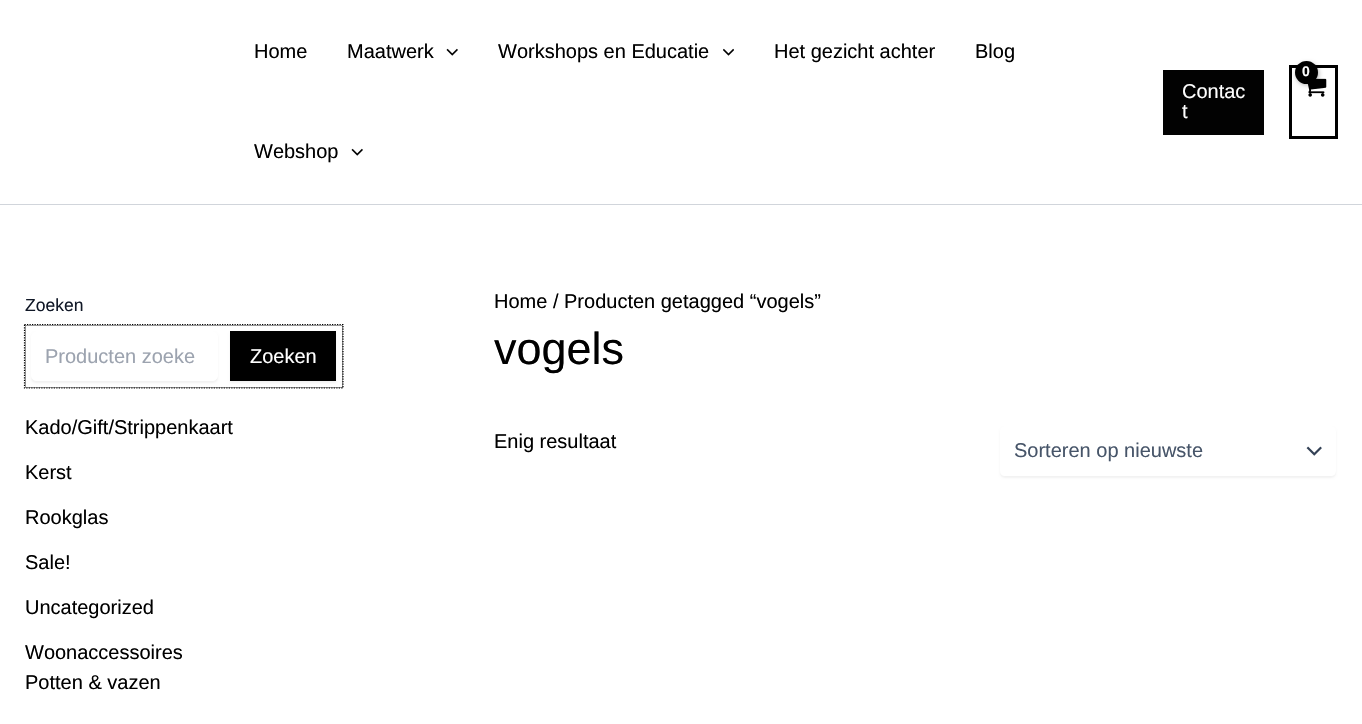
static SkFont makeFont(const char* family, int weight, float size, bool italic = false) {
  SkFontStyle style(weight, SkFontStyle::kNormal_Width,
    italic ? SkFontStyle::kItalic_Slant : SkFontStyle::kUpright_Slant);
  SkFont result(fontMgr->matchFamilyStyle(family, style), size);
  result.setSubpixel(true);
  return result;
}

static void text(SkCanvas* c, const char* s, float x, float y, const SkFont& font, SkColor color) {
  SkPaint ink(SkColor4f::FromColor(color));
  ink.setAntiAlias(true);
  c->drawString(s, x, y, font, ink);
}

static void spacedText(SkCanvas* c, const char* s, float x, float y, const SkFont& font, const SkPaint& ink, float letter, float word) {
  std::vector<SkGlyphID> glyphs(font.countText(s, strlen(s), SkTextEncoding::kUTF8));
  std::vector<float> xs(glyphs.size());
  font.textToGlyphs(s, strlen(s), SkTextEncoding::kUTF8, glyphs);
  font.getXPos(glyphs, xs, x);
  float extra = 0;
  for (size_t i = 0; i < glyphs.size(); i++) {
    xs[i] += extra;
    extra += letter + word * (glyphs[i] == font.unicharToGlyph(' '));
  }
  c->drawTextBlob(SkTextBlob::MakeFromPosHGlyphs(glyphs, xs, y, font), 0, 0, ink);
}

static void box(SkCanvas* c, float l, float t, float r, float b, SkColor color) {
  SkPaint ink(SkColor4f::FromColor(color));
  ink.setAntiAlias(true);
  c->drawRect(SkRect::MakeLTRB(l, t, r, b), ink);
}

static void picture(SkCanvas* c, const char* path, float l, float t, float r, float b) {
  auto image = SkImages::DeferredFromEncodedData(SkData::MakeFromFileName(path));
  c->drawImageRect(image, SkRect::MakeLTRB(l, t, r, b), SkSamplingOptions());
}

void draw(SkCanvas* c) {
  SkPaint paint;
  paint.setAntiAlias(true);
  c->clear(0xffffffff);
  box(c, 0, 204, 1362, 205, 0xffd1d5db);
  SkFont face1 = makeFont("Liberation Sans", 400, 20);
  text(c, "Home", 254, 58, face1, 0xff000000);
  text(c, "Maatwerk", 347, 58, face1, 0xff000000);
  picture(c, "img_01.png", 446, 48, 458, 56);
  text(c, "Workshops en Educatie", 498, 58, face1, 0xff000000);
  picture(c, "img_02.png", 723, 48, 734, 56);
  text(c, "Het gezicht achter", 774, 58, face1, 0xff000000);
  text(c, "Blog", 975, 58, face1, 0xff000000);
  text(c, "Webshop", 254, 158, face1, 0xff000000);
  picture(c, "img_01.png", 351, 148, 363, 156);
  paint.setStyle(SkPaint::kStroke_Style);
  paint.setStrokeWidth(3);
  paint.setColor(0xff000000);
  c->drawRect(SkRect::MakeLTRB(1290.5f, 66.5f, 1336.5f, 137.5f), paint);
  picture(c, "img_03.png", 1307, 78, 1327, 97);
  paint.setStyle(SkPaint::kFill_Style);
  paint.setColor(0x4d000000);
  paint.setMaskFilter(SkMaskFilter::MakeBlur(kNormal_SkBlurStyle, 2));
  c->drawRoundRect(SkRect::MakeLTRB(1296, 63, 1319, 85), 11, 11, paint);
  paint.setMaskFilter(nullptr);
  paint.setColor(0xff000000);
  c->drawCircle(1306.5f, 72.5f, 11.5f, paint);
  SkFont face2 = makeFont("Liberation Sans", 700, 14);
  paint.setColor(0xffffffff);
  spacedText(c, "0", 1302, 76, face2, paint, -1, 0);
  box(c, 1163, 70, 1264, 135, 0xff020202);
  text(c, "Contac", 1182, 98, face1, 0xffffffff);
  text(c, "t", 1182, 118, face1, 0xffffffff);
  SkFont face3 = makeFont("Liberation Sans", 400, 17.5f);
  text(c, "Zoeken", 25, 311, face3, 0xff111827);
  paint.setStyle(SkPaint::kStroke_Style);
  paint.setStrokeWidth(1);
  paint.setColor(0xff949494);
  c->drawRect(SkRect::MakeLTRB(25.5f, 325.5f, 342.5f, 387.5f), paint);
  paint.setStyle(SkPaint::kFill_Style);
  paint.setColor(0x0d000000);
  paint.setMaskFilter(SkMaskFilter::MakeBlur(kNormal_SkBlurStyle, 1));
  c->drawRoundRect(SkRect::MakeLTRB(31, 333, 218, 383), 5, 5, paint);
  paint.setMaskFilter(nullptr);
  paint.setColor(0xffffffff);
  c->drawRoundRect(SkRect::MakeLTRB(31.5f, 331.5f, 217.5f, 380.5f), 4.5f, 4.5f, paint);
  paint.setStyle(SkPaint::kStroke_Style);
  c->drawRoundRect(SkRect::MakeLTRB(31.5f, 331.5f, 217.5f, 380.5f), 4.5f, 4.5f, paint);
  text(c, "Producten zoeke", 45, 363, face1, 0xff9ca3af);
  paint.setStyle(SkPaint::kFill_Style);
  paint.setColor(0x0d000000);
  paint.setMaskFilter(SkMaskFilter::MakeBlur(kNormal_SkBlurStyle, 1));
  c->drawRect(SkRect::MakeLTRB(230, 333, 336, 383), paint);
  paint.setMaskFilter(nullptr);
  box(c, 230, 331, 336, 381, 0xff000000);
  text(c, "Zoeken", 250, 363, face1, 0xffffffff);
  paint.setStyle(SkPaint::kStroke_Style);
  paint.setStrokeWidth(1.2f);
  paint.setColor(0xff000000);
  paint.setPathEffect(SkDashPathEffect::Make({{1.25f, 1.25f}}, 0));
  c->drawPath(SkPathBuilder().moveTo(24.5f, 324.5f).lineTo(343, 324.5f).lineTo(343, 388).lineTo(24.5f, 388).close().detach(), paint);
  paint.setPathEffect(nullptr);
  text(c, "Kado/Gift/Strippenkaart", 25, 434, face1, 0xff000000);
  text(c, "Kerst", 25, 479, face1, 0xff000000);
  text(c, "Rookglas", 25, 524, face1, 0xff000000);
  text(c, "Sale!", 25, 569, face1, 0xff000000);
  text(c, "Uncategorized", 25, 614, face1, 0xff000000);
  text(c, "Woonaccessoires", 25, 659, face1, 0xff000000);
  text(c, "Potten & vazen", 25, 689, face1, 0xff000000);
  text(c, "Home / Producten getagged “vogels”", 494, 308, face1, 0xff000000);
  SkFont face4 = makeFont("Liberation Sans", 400, 45);
  text(c, "vogels", 494, 364, face4, 0xff000000);
  text(c, "Enig resultaat", 494, 448, face1, 0xff000000);
  c->save();
  c->clipPath(SkPathBuilder(SkPathFillType::kEvenOdd).moveTo(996, 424).lineTo(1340, 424).lineTo(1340, 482).lineTo(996, 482).close().moveTo(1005, 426).lineTo(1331, 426).cubicTo(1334, 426, 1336, 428, 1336, 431).lineTo(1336, 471).cubicTo(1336, 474, 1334, 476, 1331, 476).lineTo(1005, 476).cubicTo(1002, 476, 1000, 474, 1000, 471).lineTo(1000, 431).cubicTo(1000, 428, 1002, 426, 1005, 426).close().detach(), true);
  paint.setStyle(SkPaint::kFill_Style);
  paint.setColor(0x0d000000);
  paint.setMaskFilter(SkMaskFilter::MakeBlur(kNormal_SkBlurStyle, 1));
  c->drawRoundRect(SkRect::MakeLTRB(1000, 428, 1336, 478), 5, 5, paint);
  paint.setMaskFilter(nullptr);
  c->restore();
  picture(c, "img_04.png", 1306, 446, 1322, 456);
  text(c, "Sorteren op nieuwste", 1014, 457, face1, 0xff475569);
}
